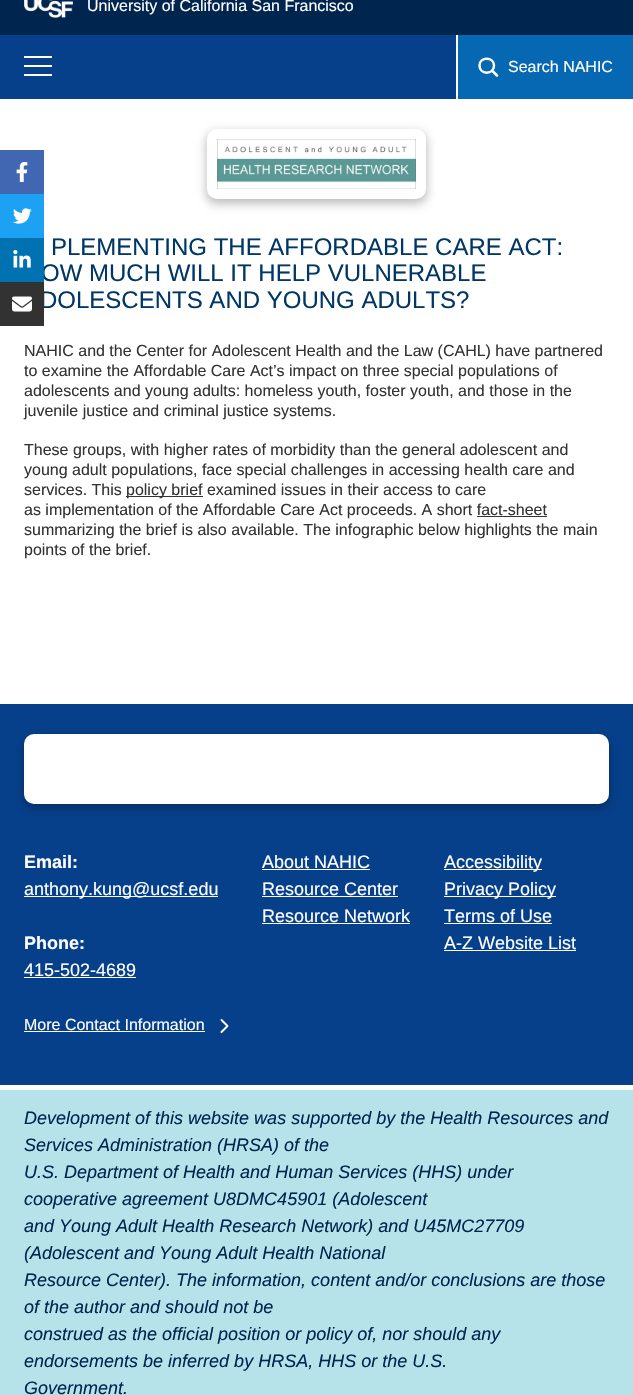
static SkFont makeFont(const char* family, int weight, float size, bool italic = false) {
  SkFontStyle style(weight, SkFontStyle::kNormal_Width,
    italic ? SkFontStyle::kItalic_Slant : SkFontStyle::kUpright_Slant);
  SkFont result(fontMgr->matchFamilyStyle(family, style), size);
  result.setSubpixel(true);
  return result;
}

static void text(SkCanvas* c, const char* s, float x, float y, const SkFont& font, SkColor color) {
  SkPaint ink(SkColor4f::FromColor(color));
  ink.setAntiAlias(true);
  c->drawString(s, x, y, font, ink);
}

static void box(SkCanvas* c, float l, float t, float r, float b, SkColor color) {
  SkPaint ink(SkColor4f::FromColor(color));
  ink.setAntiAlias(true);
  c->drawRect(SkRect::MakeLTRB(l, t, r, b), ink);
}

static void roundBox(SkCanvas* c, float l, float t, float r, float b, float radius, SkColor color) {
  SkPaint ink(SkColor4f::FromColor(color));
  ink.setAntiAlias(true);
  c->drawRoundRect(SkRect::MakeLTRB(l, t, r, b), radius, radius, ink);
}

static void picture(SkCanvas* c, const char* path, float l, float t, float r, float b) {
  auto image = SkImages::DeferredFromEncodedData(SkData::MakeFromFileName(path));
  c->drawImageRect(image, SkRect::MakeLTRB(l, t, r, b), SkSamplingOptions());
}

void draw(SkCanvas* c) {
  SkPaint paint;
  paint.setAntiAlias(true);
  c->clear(0xffffffff);
  box(c, 0, 0, 633, 35, 0xff00264f);
  picture(c, "img_01.png", 24, 0, 73, 18);
  SkFont face1 = makeFont("Liberation Sans", 400, 16);
  text(c, "University of California San Francisco", 87, 11, face1, 0xffffffff);
  box(c, 458, 35, 633, 99, 0xff0668b3);
  paint.setStyle(SkPaint::kStroke_Style);
  paint.setStrokeWidth(2.5f);
  paint.setStrokeCap(SkPaint::kRound_Cap);
  paint.setColor(0xffffffff);
  c->drawPath(SkPathBuilder().moveTo(497, 75.5f).lineTo(492, 70.5f).moveTo(494, 65.5f).cubicTo(494, 75, 479.5f, 75, 479.5f, 65.5f).cubicTo(479.5f, 56.5f, 494, 56.5f, 494, 65.5f).close().detach(), paint);
  text(c, "Search NAHIC", 508, 72, face1, 0xffffffff);
  box(c, 0, 35, 456, 99, 0xff06408b);
  box(c, 24, 56, 52, 58, 0xffffffff);
  box(c, 24, 65, 52, 67, 0xffffffff);
  box(c, 24, 74, 52, 76, 0xffffffff);
  paint.setStyle(SkPaint::kFill_Style);
  paint.setColor(0x40000000);
  paint.setMaskFilter(SkMaskFilter::MakeBlur(kNormal_SkBlurStyle, 5));
  c->drawRoundRect(SkRect::MakeLTRB(206, 132, 427, 204), 11, 11, paint);
  paint.setMaskFilter(nullptr);
  roundBox(c, 207, 129, 426, 199, 10, 0xffffffff);
  picture(c, "img_02.png", 217, 139, 416, 189);
  SkFont face2 = makeFont("Liberation Sans", 400, 24);
  text(c, "PLEMENTING THE AFFORDABLE CARE ACT:", 51, 255, face2, 0xff013766);
  text(c, "OW MUCH WILL IT HELP VULNERABLE", 41, 281, face2, 0xff013766);
  text(c, "DOLESCENTS AND YOUNG ADULTS?", 40, 308, face2, 0xff013766);
  text(c, "NAHIC and the Center for Adolescent Health and the Law (CAHL) have partnered", 24, 356, face1, 0xff333333);
  text(c, "to examine the Affordable Care Act’s impact on three special populations of", 24, 376, face1, 0xff333333);
  text(c, "adolescents and young adults: homeless youth, foster youth, and those in the", 24, 396, face1, 0xff333333);
  text(c, "juvenile justice and criminal justice systems.", 24, 416, face1, 0xff333333);
  text(c, "These groups, with higher rates of morbidity than the general adolescent and", 24, 455, face1, 0xff333333);
  text(c, "young adult populations, face special challenges in accessing health care and", 24, 475, face1, 0xff333333);
  text(c, "services. This", 24, 495, face1, 0xff333333);
  box(c, 126, 496, 203, 497, 0xff333333);
  text(c, "policy brief examined issues in their access to care", 126, 495, face1, 0xff333333);
  text(c, "as implementation of the Affordable Care Act proceeds. A short fact-sheet", 24, 515, face1, 0xff333333);
  box(c, 477, 516, 547, 517, 0xff333333);
  text(c, "summarizing the brief is also available. The infographic below highlights the main", 24, 535, face1, 0xff333333);
  text(c, "points of the brief.", 24, 555, face1, 0xff333333);
  box(c, 0, 704, 633, 1085, 0xff06408b);
  box(c, 0, 150, 44, 194, 0xff4267b2);
  picture(c, "img_03.png", 16, 162, 28, 182);
  box(c, 0, 194, 44, 238, 0xff1da1f2);
  picture(c, "img_04.png", 13, 208, 32, 224);
  box(c, 0, 238, 44, 282, 0xff0072b1);
  picture(c, "img_05.png", 13, 250, 31, 268);
  box(c, 0, 282, 44, 326, 0xff323232);
  picture(c, "img_06.png", 12, 296, 32, 312);
  paint.setMaskFilter(SkMaskFilter::MakeBlur(kNormal_SkBlurStyle, 5));
  c->drawRoundRect(SkRect::MakeLTRB(23, 737, 610, 809), 11, 11, paint);
  paint.setMaskFilter(nullptr);
  roundBox(c, 24, 734, 609, 804, 10, 0xffffffff);
  SkFont face3 = makeFont("Liberation Sans", 700, 18);
  text(c, "Email:", 24, 868, face3, 0xffffffff);
  box(c, 24, 896, 218, 897, 0xffffffff);
  SkFont face4 = makeFont("Liberation Sans", 400, 18);
  text(c, "anthony.kung@ucsf.edu", 24, 895, face4, 0xffffffff);
  text(c, "Phone:", 24, 949, face3, 0xffffffff);
  text(c, "415-502-4689", 24, 976, face4, 0xffffffff);
  box(c, 24, 977, 136, 978, 0xffffffff);
  paint.setStyle(SkPaint::kStroke_Style);
  paint.setStrokeWidth(2);
  paint.setStrokeJoin(SkPaint::kRound_Join);
  paint.setColor(0xffffffff);
  c->drawPath(SkPathBuilder().moveTo(221.5f, 1032).lineTo(227.5f, 1026).lineTo(221.5f, 1020).detach(), paint);
  text(c, "More Contact Information", 24, 1030, face1, 0xffffffff);
  box(c, 24, 1031, 205, 1032, 0xffffffff);
  text(c, "About NAHIC", 262, 868, face4, 0xffffffff);
  box(c, 262, 869, 370, 870, 0xffffffff);
  text(c, "Resource Center", 262, 895, face4, 0xffffffff);
  box(c, 262, 896, 398, 897, 0xffffffff);
  text(c, "Resource Network", 262, 922, face4, 0xffffffff);
  box(c, 262, 923, 410, 924, 0xffffffff);
  box(c, 444, 869, 542, 870, 0xffffffff);
  text(c, "Accessibility", 444, 868, face4, 0xffffffff);
  box(c, 444, 896, 556, 897, 0xffffffff);
  text(c, "Privacy Policy", 444, 895, face4, 0xffffffff);
  text(c, "Terms of Use", 444, 922, face4, 0xffffffff);
  box(c, 444, 923, 552, 924, 0xffffffff);
  text(c, "A-Z Website List", 444, 949, face4, 0xffffffff);
  box(c, 444, 950, 576, 951, 0xffffffff);
  box(c, 0, 1090, 633, 1395, 0xffb6e2e9);
  SkFont face5 = makeFont("Liberation Sans", 400, 18, true);
  text(c, "Development of this website was supported by the Health Resources and", 24, 1124, face5, 0xff00264f);
  text(c, "Services Administration (HRSA) of the", 24, 1151, face5, 0xff00264f);
  text(c, "U.S. Department of Health and Human Services (HHS) under", 24, 1178, face5, 0xff00264f);
  text(c, "cooperative agreement U8DMC45901 (Adolescent", 24, 1205, face5, 0xff00264f);
  text(c, "and Young Adult Health Research Network) and U45MC27709", 24, 1232, face5, 0xff00264f);
  text(c, "(Adolescent and Young Adult Health National", 24, 1259, face5, 0xff00264f);
  text(c, "Resource Center). The information, content and/or conclusions are those", 24, 1286, face5, 0xff00264f);
  text(c, "of the author and should not be", 24, 1313, face5, 0xff00264f);
  text(c, "construed as the official position or policy of, nor should any", 24, 1340, face5, 0xff00264f);
  text(c, "endorsements be inferred by HRSA, HHS or the U.S.", 24, 1367, face5, 0xff00264f);
  text(c, "Government.", 24, 1394, face5, 0xff00264f);
}
